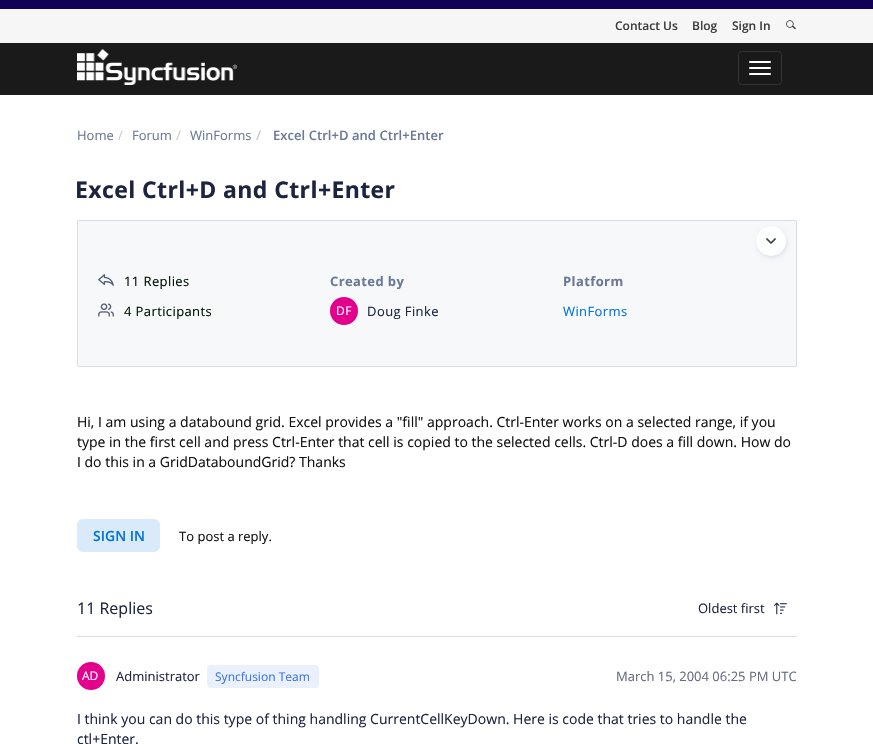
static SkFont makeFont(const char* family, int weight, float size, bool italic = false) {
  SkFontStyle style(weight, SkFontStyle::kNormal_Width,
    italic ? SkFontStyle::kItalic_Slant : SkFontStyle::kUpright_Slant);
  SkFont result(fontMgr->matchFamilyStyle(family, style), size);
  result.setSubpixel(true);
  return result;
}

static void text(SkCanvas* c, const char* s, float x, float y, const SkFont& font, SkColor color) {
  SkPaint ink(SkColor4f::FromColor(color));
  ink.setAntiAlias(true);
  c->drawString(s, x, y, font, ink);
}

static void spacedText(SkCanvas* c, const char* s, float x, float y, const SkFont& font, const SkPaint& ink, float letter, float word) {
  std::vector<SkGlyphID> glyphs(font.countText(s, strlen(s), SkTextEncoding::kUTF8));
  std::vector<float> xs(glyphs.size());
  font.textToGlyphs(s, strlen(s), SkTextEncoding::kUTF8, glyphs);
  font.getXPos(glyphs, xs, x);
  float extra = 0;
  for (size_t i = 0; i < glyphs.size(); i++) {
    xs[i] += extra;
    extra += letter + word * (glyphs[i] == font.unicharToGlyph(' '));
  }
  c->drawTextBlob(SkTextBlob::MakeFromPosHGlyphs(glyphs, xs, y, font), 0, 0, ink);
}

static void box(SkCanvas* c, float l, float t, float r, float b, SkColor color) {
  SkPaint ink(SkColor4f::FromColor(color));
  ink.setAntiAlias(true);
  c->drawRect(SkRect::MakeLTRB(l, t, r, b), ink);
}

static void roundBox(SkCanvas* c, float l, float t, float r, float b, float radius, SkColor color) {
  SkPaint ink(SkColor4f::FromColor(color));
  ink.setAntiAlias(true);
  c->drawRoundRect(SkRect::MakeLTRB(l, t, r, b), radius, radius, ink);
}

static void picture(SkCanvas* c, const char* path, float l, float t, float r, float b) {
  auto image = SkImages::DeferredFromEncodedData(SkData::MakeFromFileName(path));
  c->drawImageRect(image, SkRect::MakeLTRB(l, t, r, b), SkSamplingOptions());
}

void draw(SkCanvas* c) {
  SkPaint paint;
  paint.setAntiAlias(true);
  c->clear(0xffffffff);
  box(c, 0, 0, 873, 9, 0xff110056);
  box(c, 0, 43, 873, 95, 0xff1a1a1a);
  box(c, 0, 9, 873, 43, 0xfff6f6f6);
  SkFont face1 = makeFont("Open Sans", 600, 12);
  text(c, "Contact Us", 615, 30, face1, 0xff3d3d3d);
  text(c, "Blog", 692, 30, face1, 0xff3d3d3d);
  text(c, "Sign In", 732, 30, face1, 0xff3d3d3d);
  picture(c, "img_01.png", 786, 20, 796, 30);
  picture(c, "img_02.png", 77, 49, 237, 85);
  paint.setStyle(SkPaint::kStroke_Style);
  paint.setStrokeWidth(1);
  paint.setColor(0xff333333);
  c->drawRoundRect(SkRect::MakeLTRB(738.5f, 51.5f, 781.5f, 84.5f), 3.5f, 3.5f, paint);
  roundBox(c, 749, 61, 771, 63, 1, 0xffffffff);
  roundBox(c, 749, 67, 771, 69, 1, 0xffffffff);
  roundBox(c, 749, 73, 771, 75, 1, 0xffffffff);
  SkFont face2 = makeFont("Open Sans", 400, 13);
  text(c, "Home", 77, 140, face2, 0xff6d7897);
  text(c, "/", 118, 140, face2, 0xffcccccc);
  text(c, "Forum", 132, 140, face2, 0xff6d7897);
  text(c, "/", 176, 140, face2, 0xffcccccc);
  text(c, "WinForms", 190, 140, face2, 0xff6d7897);
  SkFont face3 = makeFont("Open Sans", 600, 13);
  paint.setStyle(SkPaint::kFill_Style);
  paint.setColor(0xffcccccc);
  spacedText(c, "/", 256, 140, face3, paint, 0.05f, 0);
  paint.setColor(0xff6d7897);
  spacedText(c, "Excel Ctrl+D and Ctrl+Enter", 273, 140, face3, paint, 0.05f, 0);
  SkFont face4 = makeFont("Open Sans", 700, 23);
  paint.setColor(0xff1c243f);
  spacedText(c, "Excel Ctrl+D and Ctrl+Enter", 75, 198, face4, paint, 0.4f, 0);
  paint.setColor(0xfff7f8fa);
  c->drawRoundRect(SkRect::MakeLTRB(77.5f, 220.5f, 796.5f, 366.5f), 1.5f, 1.5f, paint);
  paint.setStyle(SkPaint::kStroke_Style);
  paint.setColor(0xffd9ddea);
  c->drawRoundRect(SkRect::MakeLTRB(77.5f, 220.5f, 796.5f, 366.5f), 1.5f, 1.5f, paint);
  paint.setStyle(SkPaint::kFill_Style);
  paint.setColor(0xffdde2eb);
  paint.setMaskFilter(SkMaskFilter::MakeBlur(kNormal_SkBlurStyle, 2));
  c->drawRoundRect(SkRect::MakeLTRB(757, 228, 787, 258), 15, 15, paint);
  paint.setMaskFilter(nullptr);
  paint.setColor(0xfffdfefe);
  c->drawCircle(771, 241, 15, paint);
  picture(c, "img_03.png", 766, 238, 776, 244);
  picture(c, "img_04.png", 98, 274, 114, 286);
  paint.setColor(0xff001200);
  spacedText(c, "11 Replies", 124, 286, face2, paint, 0.4f, 0);
  picture(c, "img_05.png", 98, 303, 114, 317);
  spacedText(c, "4 Participants", 124, 316, face2, paint, 0.4f, 0);
  SkFont face5 = makeFont("Open Sans", 700, 13);
  paint.setColor(0xff6d7897);
  spacedText(c, "Created by", 330, 286, face5, paint, 0.4f, 0);
  paint.setColor(0xffe3008c);
  c->drawCircle(344, 311, 14, paint);
  SkFont face6 = makeFont("Open Sans", 400, 12);
  paint.setColor(0xffffffff);
  spacedText(c, "DF", 336, 315, face6, paint, 0.4f, 0);
  paint.setColor(0xff1c243f);
  spacedText(c, "Doug Finke", 367, 316, face2, paint, 0.4f, 0);
  paint.setColor(0xff6d7897);
  spacedText(c, "Platform", 563, 286, face5, paint, 0.4f, 0);
  paint.setColor(0xff0073dc);
  spacedText(c, "WinForms", 563, 316, face2, paint, 0.4f, 0);
  SkFont face7 = makeFont("Open Sans", 400, 14);
  text(c, "Hi, I am using a databound grid. Excel provides a \"fill\" approach. Ctrl-Enter works on a selected range, if you", 77, 427, face7, 0xff111111);
  text(c, "type in the first cell and press Ctrl-Enter that cell is copied to the selected cells. Ctrl-D does a fill down. How do", 77, 447, face7, 0xff111111);
  text(c, "I do this in a GridDataboundGrid? Thanks", 77, 467, face7, 0xff111111);
  paint.setColor(0xffd9eafa);
  c->drawRoundRect(SkRect::MakeLTRB(77.5f, 519.5f, 159.5f, 551.5f), 5.5f, 5.5f, paint);
  paint.setStyle(SkPaint::kStroke_Style);
  c->drawRoundRect(SkRect::MakeLTRB(77.5f, 519.5f, 159.5f, 551.5f), 5.5f, 5.5f, paint);
  SkFont face8 = makeFont("Open Sans", 600, 14);
  text(c, "SIGN IN", 93, 541, face8, 0xff0073dc);
  text(c, "To post a reply.", 179, 541, face2, 0xff111111);
  SkFont face9 = makeFont("Open Sans", 400, 16);
  text(c, "11 Replies", 77, 614, face9, 0xff1c243f);
  text(c, "Oldest first", 698, 613, face2, 0xff1c243f);
  picture(c, "img_06.png", 774, 602, 787, 615);
  box(c, 77, 636, 797, 637, 0xffd9ddea);
  paint.setStyle(SkPaint::kFill_Style);
  paint.setColor(0xffe3008c);
  c->drawCircle(91, 676, 14, paint);
  text(c, "AD", 82, 680, face6, 0xffffffff);
  text(c, "Administrator", 116, 681, face2, 0xff1c243f);
  roundBox(c, 207, 665, 319, 688, 4, 0xffeaf1fd);
  text(c, "Syncfusion Team", 215, 681, face6, 0xff3876eb);
  text(c, "March 15, 2004 06:25 PM UTC", 616, 681, face2, 0xff646c82);
  text(c, "I think you can do this type of thing handling CurrentCellKeyDown. Here is code that tries to handle the", 77, 724, face7, 0xff1c243f);
  text(c, "ctl+Enter.", 77, 744, face7, 0xff1c243f);
}
